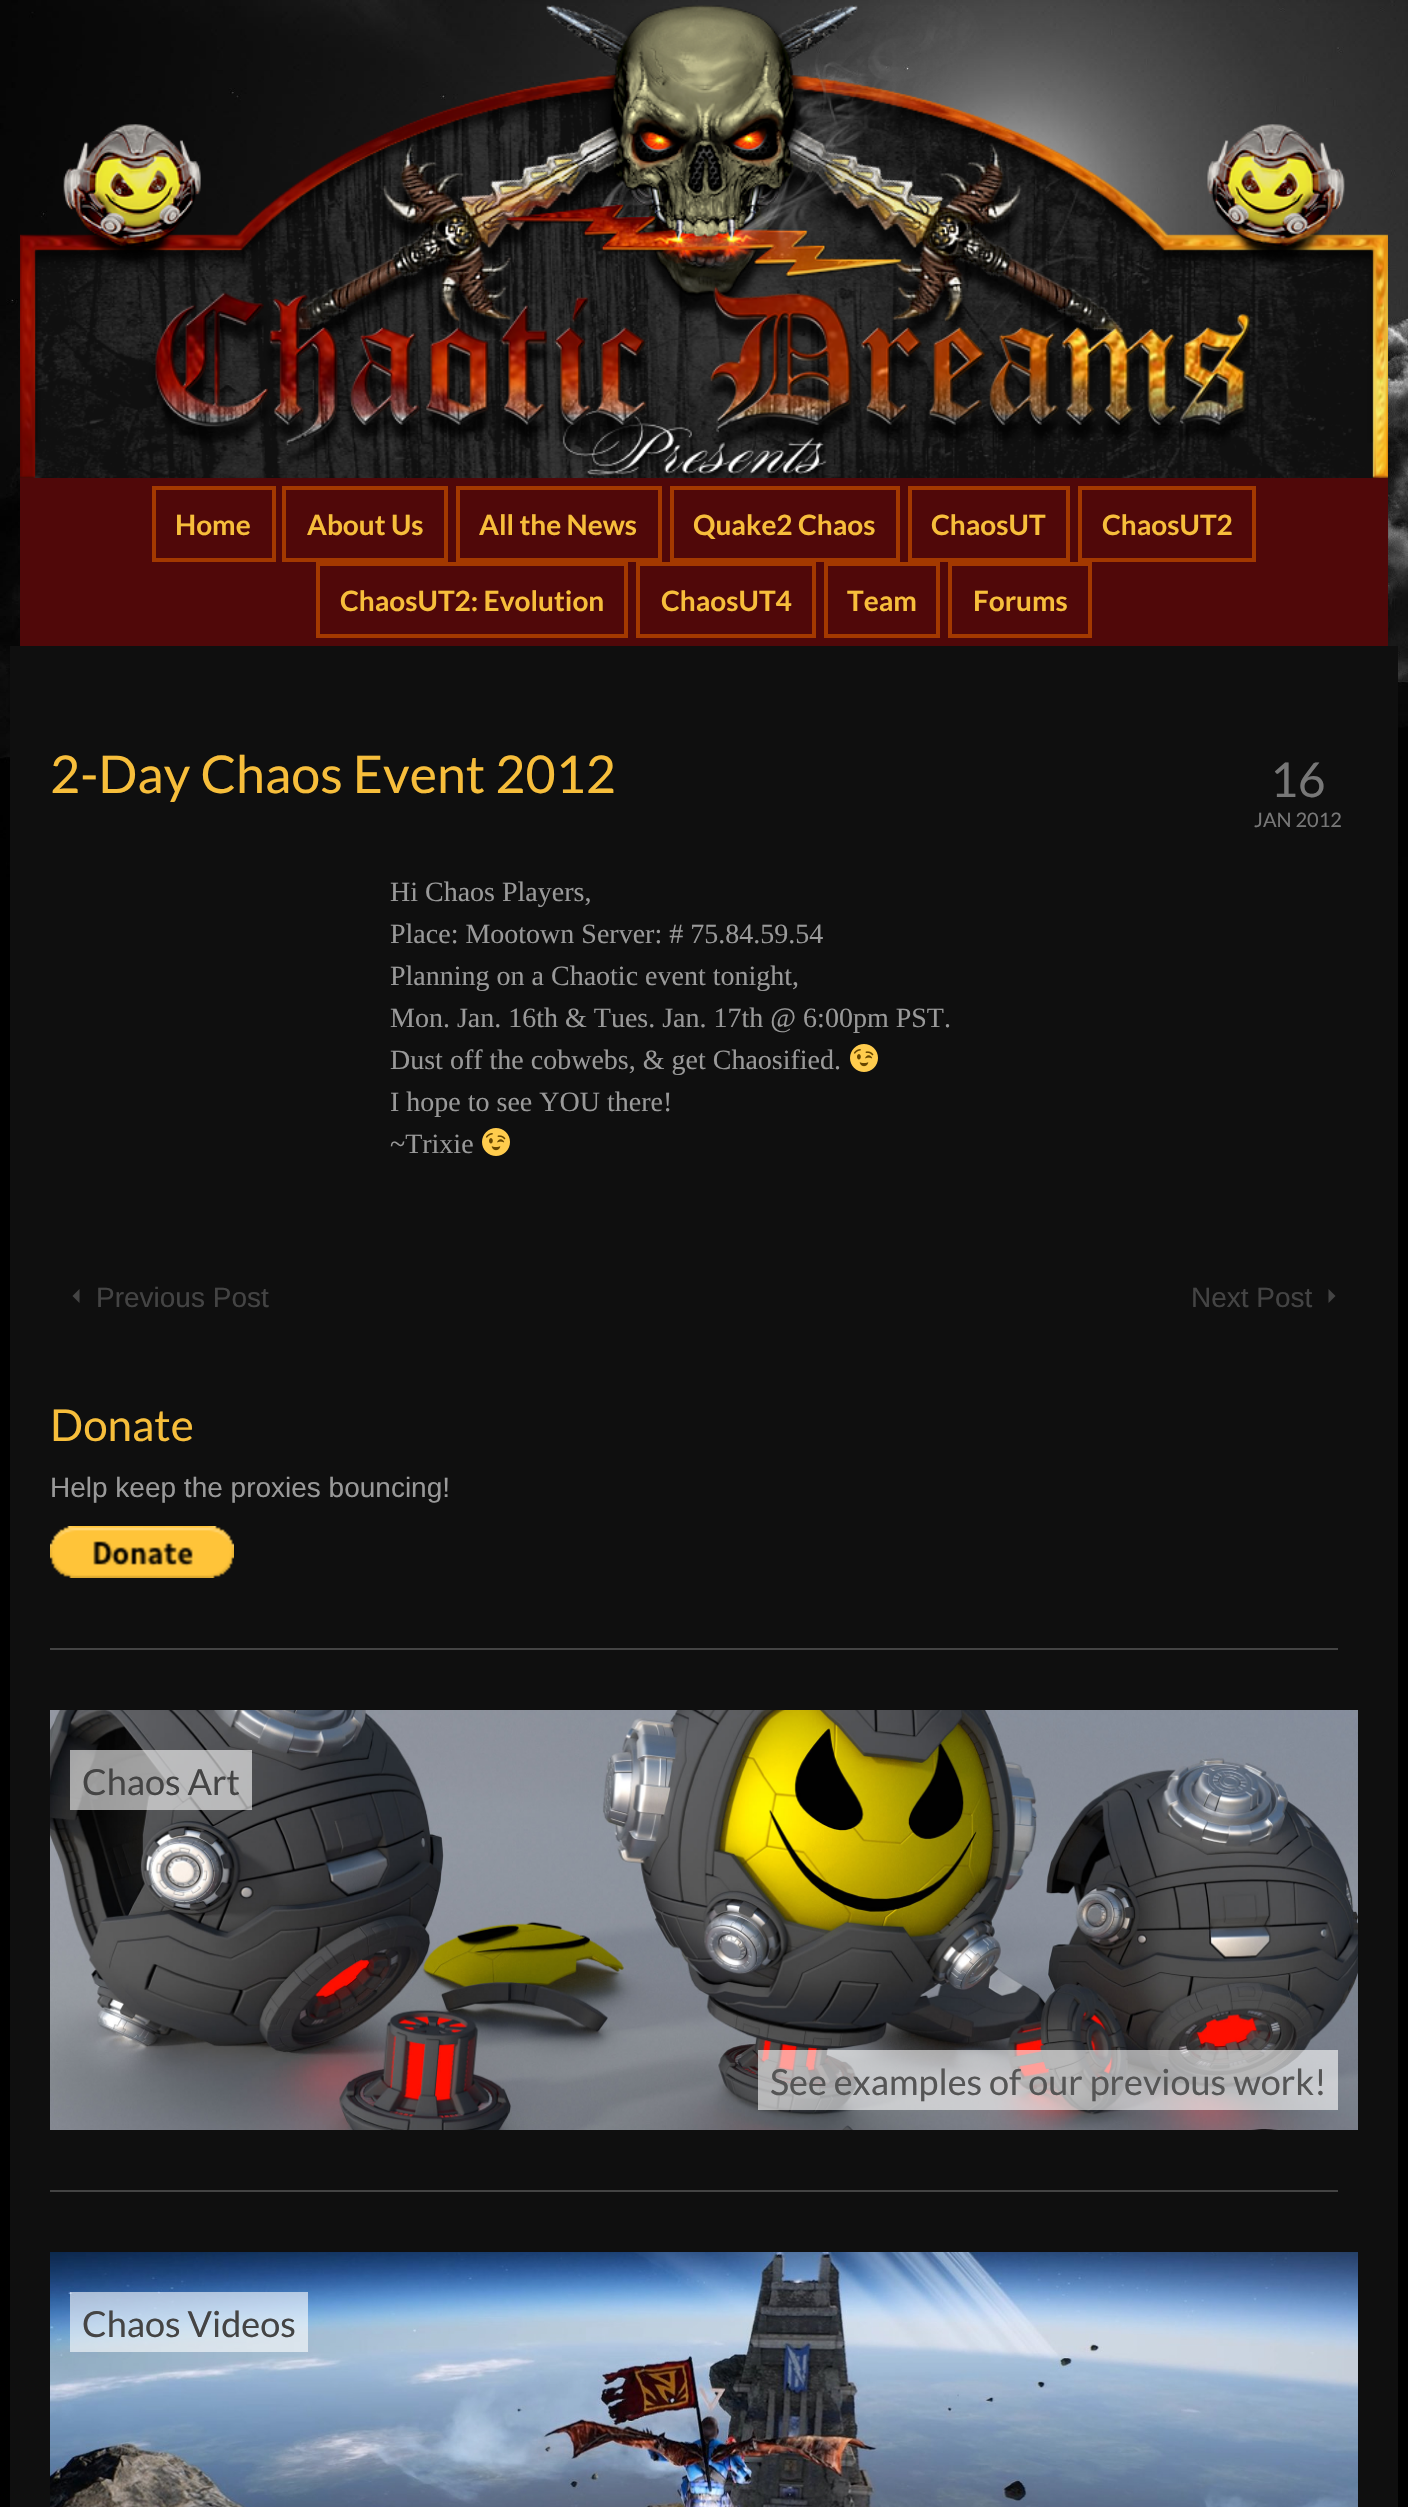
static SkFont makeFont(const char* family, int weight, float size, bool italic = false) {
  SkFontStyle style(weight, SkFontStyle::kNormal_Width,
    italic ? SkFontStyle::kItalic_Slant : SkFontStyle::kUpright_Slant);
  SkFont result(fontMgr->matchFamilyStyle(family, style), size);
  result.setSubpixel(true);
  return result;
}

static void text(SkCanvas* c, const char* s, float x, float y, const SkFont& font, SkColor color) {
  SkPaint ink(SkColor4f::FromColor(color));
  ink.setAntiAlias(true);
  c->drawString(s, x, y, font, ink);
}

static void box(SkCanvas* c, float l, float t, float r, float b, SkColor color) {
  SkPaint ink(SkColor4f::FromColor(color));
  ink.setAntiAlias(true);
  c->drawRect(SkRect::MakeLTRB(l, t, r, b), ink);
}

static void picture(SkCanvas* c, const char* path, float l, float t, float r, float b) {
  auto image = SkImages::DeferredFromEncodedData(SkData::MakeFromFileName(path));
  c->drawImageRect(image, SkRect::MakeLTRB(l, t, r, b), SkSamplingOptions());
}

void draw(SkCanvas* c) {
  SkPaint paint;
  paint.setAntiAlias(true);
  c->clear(0xff000000);
  picture(c, "img_01.png", 0, 0, 1408, 880);
  picture(c, "img_02.png", 20, 5, 1388, 478);
  box(c, 20, 478, 1388, 646, 0xff500809);
  paint.setStyle(SkPaint::kStroke_Style);
  paint.setStrokeWidth(4);
  paint.setColor(0xffa33900);
  c->drawRect(SkRect::MakeLTRB(154, 488, 274, 560), paint);
  SkFont face1 = makeFont("Lato", 700, 28);
  text(c, "Home", 175, 535, face1, 0xfff7be3b);
  c->drawRect(SkRect::MakeLTRB(284, 488, 446, 560), paint);
  text(c, "About Us", 307, 535, face1, 0xfff7be3b);
  c->drawRect(SkRect::MakeLTRB(458, 488, 660, 560), paint);
  text(c, "All the News", 479, 535, face1, 0xfff7be3b);
  c->drawRect(SkRect::MakeLTRB(672, 488, 898, 560), paint);
  text(c, "Quake2 Chaos", 693, 535, face1, 0xfff7be3b);
  c->drawRect(SkRect::MakeLTRB(910, 488, 1068, 560), paint);
  text(c, "ChaosUT", 931, 535, face1, 0xfff7be3b);
  c->drawRect(SkRect::MakeLTRB(1080, 488, 1254, 560), paint);
  text(c, "ChaosUT2", 1102, 535, face1, 0xfff7be3b);
  c->drawRect(SkRect::MakeLTRB(318, 564, 626, 636), paint);
  text(c, "ChaosUT2: Evolution", 340, 611, face1, 0xfff7be3b);
  c->drawRect(SkRect::MakeLTRB(638, 564, 814, 636), paint);
  text(c, "ChaosUT4", 661, 611, face1, 0xfff7be3b);
  c->drawRect(SkRect::MakeLTRB(826, 564, 938, 636), paint);
  text(c, "Team", 847, 611, face1, 0xfff7be3b);
  c->drawRect(SkRect::MakeLTRB(950, 564, 1090, 636), paint);
  text(c, "Forums", 973, 611, face1, 0xfff7be3b);
  box(c, 10, 646, 1398, 2507, 0xff0f0f0f);
  SkFont face2 = makeFont("Lato", 400, 52);
  text(c, "2-Day Chaos Event 2012", 50, 793, face2, 0xfff7be3b);
  SkFont face3 = makeFont("Lato", 400, 48);
  text(c, "16", 1270, 797, face3, 0xff777777);
  SkFont face4 = makeFont("Lato", 400, 20);
  text(c, "JAN 2012", 1254, 827, face4, 0xff777777);
  SkFont face5 = makeFont("Liberation Serif", 400, 28);
  text(c, "Hi Chaos Players,", 390, 901, face5, 0xff999999);
  text(c, "Place: Mootown Server: # 75.84.59.54", 390, 943, face5, 0xff999999);
  text(c, "Planning on a Chaotic event tonight,", 390, 985, face5, 0xff999999);
  text(c, "Mon. Jan. 16th & Tues. Jan. 17th @ 6:00pm PST.", 390, 1027, face5, 0xff999999);
  text(c, "Dust off the cobwebs, & get Chaosified.", 390, 1069, face5, 0xff999999);
  picture(c, "img_03.png", 850, 1044, 878, 1072);
  text(c, "I hope to see YOU there!", 390, 1111, face5, 0xff999999);
  text(c, "~Trixie", 390, 1153, face5, 0xff999999);
  picture(c, "img_03.png", 482, 1128, 510, 1156);
  SkFont face6 = makeFont("Liberation Sans", 400, 28);
  text(c, "Previous Post", 96, 1307, face6, 0xff444444);
  paint.setStyle(SkPaint::kFill_Style);
  paint.setColor(0xff444444);
  c->drawPath(SkPathBuilder().moveTo(79.5f, 1289).lineTo(72.5f, 1296).lineTo(79.5f, 1303).close().detach(), paint);
  text(c, "Next Post", 1191, 1307, face6, 0xff444444);
  c->drawPath(SkPathBuilder().moveTo(1328.5f, 1303).lineTo(1335.5f, 1296).lineTo(1328.5f, 1289).close().detach(), paint);
  SkFont face7 = makeFont("Lato", 400, 44);
  text(c, "Donate", 50, 1441, face7, 0xfff7be3b);
  text(c, "Help keep the proxies bouncing!", 50, 1497, face6, 0xff999999);
  picture(c, "img_04.png", 50, 1526, 234, 1578);
  box(c, 50, 1648, 1338, 1650, 0xff444444);
  picture(c, "img_05.png", 50, 1710, 1358, 2130);
  box(c, 70, 1750, 252, 1810, 0x99ffffff);
  SkFont face8 = makeFont("Lato", 400, 36);
  text(c, "Chaos Art", 82, 1795, face8, 0xff444444);
  box(c, 758, 2050, 1338, 2110, 0x99ffffff);
  text(c, "See examples of our previous work!", 770, 2095, face8, 0xff555555);
  box(c, 50, 2190, 1338, 2192, 0xff444444);
  picture(c, "img_06.png", 50, 2252, 1358, 2507);
  box(c, 70, 2292, 308, 2352, 0x99ffffff);
  text(c, "Chaos Videos", 82, 2337, face8, 0xff444444);
}
